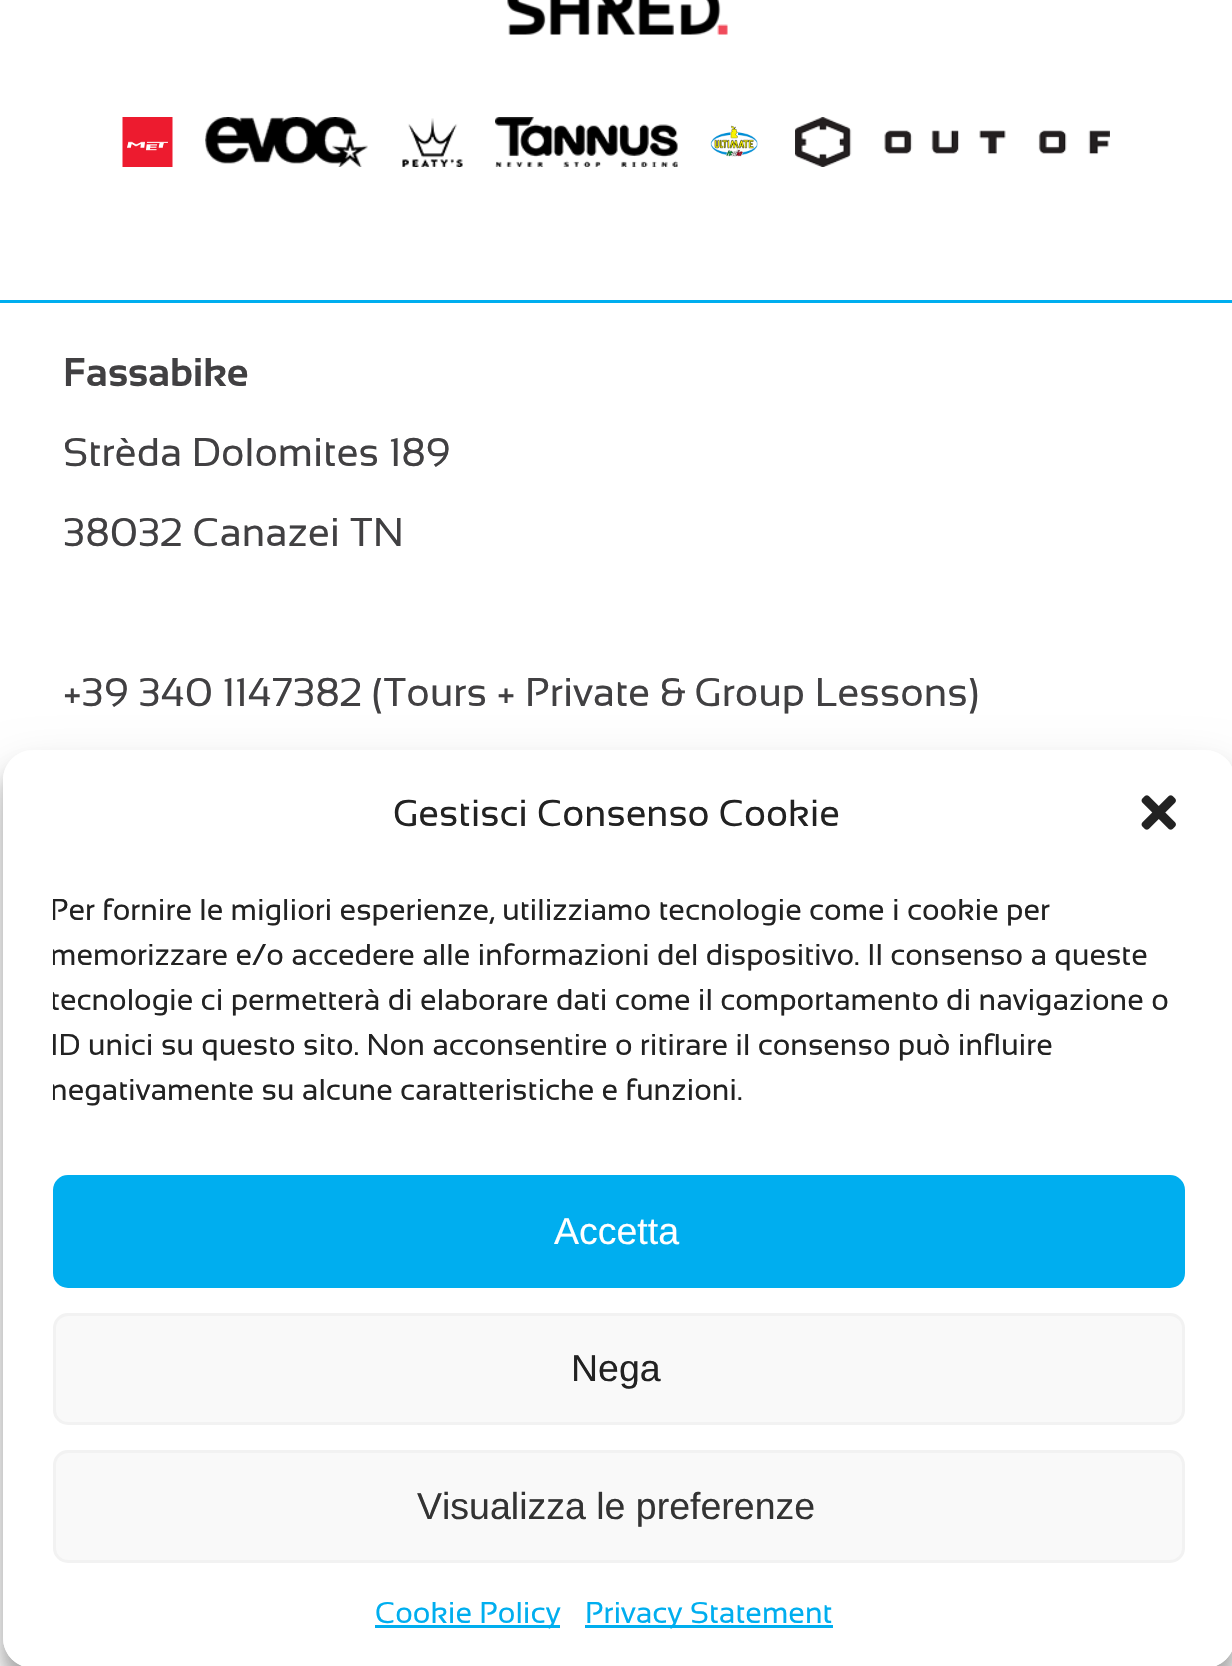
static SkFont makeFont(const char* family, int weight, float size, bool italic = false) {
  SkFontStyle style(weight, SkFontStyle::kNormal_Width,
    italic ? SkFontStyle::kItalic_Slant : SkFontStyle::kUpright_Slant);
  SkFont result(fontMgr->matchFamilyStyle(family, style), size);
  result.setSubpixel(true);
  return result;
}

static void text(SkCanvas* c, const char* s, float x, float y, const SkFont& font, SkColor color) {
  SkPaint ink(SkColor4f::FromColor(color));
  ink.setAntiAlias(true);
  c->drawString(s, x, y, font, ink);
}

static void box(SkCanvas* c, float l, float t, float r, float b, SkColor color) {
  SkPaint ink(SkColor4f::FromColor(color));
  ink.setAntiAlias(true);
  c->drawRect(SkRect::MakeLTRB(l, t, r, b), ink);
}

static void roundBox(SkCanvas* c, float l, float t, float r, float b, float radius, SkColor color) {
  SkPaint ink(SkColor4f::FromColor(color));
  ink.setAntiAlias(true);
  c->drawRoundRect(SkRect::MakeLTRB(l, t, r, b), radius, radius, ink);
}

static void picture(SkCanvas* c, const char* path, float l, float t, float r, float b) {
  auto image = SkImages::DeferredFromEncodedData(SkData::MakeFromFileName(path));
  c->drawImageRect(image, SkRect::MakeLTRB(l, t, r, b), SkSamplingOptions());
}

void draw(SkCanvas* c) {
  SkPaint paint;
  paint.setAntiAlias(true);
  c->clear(0xffffffff);
  picture(c, "img_01.png", 507, 0, 728, 35);
  picture(c, "img_02.png", 122, 117, 173, 167);
  picture(c, "img_03.png", 205, 117, 368, 167);
  picture(c, "img_04.png", 402, 118, 463, 167);
  picture(c, "img_05.png", 495, 117, 678, 167);
  picture(c, "img_06.png", 710, 125, 758, 157);
  picture(c, "img_07.png", 795, 117, 1110, 167);
  box(c, 0, 300, 1232, 303, 0xff00aeef);
  SkFont face1 = makeFont("Sansation", 700, 40);
  text(c, "Fassabike", 63, 386, face1, 0xff414042);
  SkFont face2 = makeFont("Sansation", 400, 40);
  text(c, "Strèda Dolomites 189", 63, 466, face2, 0xff414042);
  text(c, "38032 Canazei TN", 63, 546, face2, 0xff414042);
  text(c, "+39 340 1147382 (Tours + Private & Group Lessons)", 63, 706, face2, 0xff414042);
  c->save();
  c->clipPath(SkPathBuilder(SkPathFillType::kEvenOdd).moveTo(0, 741).lineTo(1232, 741).lineTo(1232, 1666).lineTo(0, 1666).close().moveTo(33, 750).lineTo(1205, 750).cubicTo(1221.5f, 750, 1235, 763.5f, 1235, 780).lineTo(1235, 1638).cubicTo(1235, 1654.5f, 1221.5f, 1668, 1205, 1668).lineTo(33, 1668).cubicTo(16.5f, 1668, 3, 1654.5f, 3, 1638).lineTo(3, 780).cubicTo(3, 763.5f, 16.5f, 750, 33, 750).close().detach(), true);
  paint.setColor(0x3b000000);
  paint.setMaskFilter(SkMaskFilter::MakeBlur(kNormal_SkBlurStyle, 7.5f));
  c->drawRoundRect(SkRect::MakeLTRB(3, 765, 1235, 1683), 30, 30, paint);
  paint.setMaskFilter(nullptr);
  c->restore();
  c->save();
  c->clipPath(SkPathBuilder(SkPathFillType::kEvenOdd).moveTo(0, 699).lineTo(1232, 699).lineTo(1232, 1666).lineTo(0, 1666).close().moveTo(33, 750).lineTo(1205, 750).cubicTo(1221.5f, 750, 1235, 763.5f, 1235, 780).lineTo(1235, 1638).cubicTo(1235, 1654.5f, 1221.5f, 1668, 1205, 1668).lineTo(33, 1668).cubicTo(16.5f, 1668, 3, 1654.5f, 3, 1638).lineTo(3, 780).cubicTo(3, 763.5f, 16.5f, 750, 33, 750).close().detach(), true);
  paint.setColor(0x30000000);
  paint.setMaskFilter(SkMaskFilter::MakeBlur(kNormal_SkBlurStyle, 25));
  c->drawRoundRect(SkRect::MakeLTRB(3, 775, 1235, 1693), 30, 30, paint);
  paint.setMaskFilter(nullptr);
  c->restore();
  roundBox(c, 3, 750, 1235, 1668, 30, 0xffffffff);
  SkFont face3 = makeFont("Sansation", 400, 37.5f);
  text(c, "Gestisci Consenso Cookie", 393, 826, face3, 0xff222222);
  picture(c, "img_08.png", 1141, 795, 1176, 830);
  c->save();
  c->clipRect(SkRect::MakeLTRB(53, 888, 1185, 1125));
  SkFont face4 = makeFont("Sansation", 400, 30);
  text(c, "Per fornire le migliori esperienze, utilizziamo tecnologie come i cookie per", 50, 920, face4, 0xff222222);
  text(c, "memorizzare e/o accedere alle informazioni del dispositivo. Il consenso a queste", 50, 965, face4, 0xff222222);
  text(c, "tecnologie ci permetterà di elaborare dati come il comportamento di navigazione o", 50, 1010, face4, 0xff222222);
  text(c, "ID unici su questo sito. Non acconsentire o ritirare il consenso può influire", 50, 1055, face4, 0xff222222);
  text(c, "negativamente su alcune caratteristiche e funzioni.", 50, 1100, face4, 0xff222222);
  c->restore();
  paint.setColor(0xff00aeef);
  c->drawRoundRect(SkRect::MakeLTRB(54.5f, 1176.5f, 1183.5f, 1286.5f), 13.5f, 13.5f, paint);
  paint.setStyle(SkPaint::kStroke_Style);
  paint.setStrokeWidth(3);
  c->drawRoundRect(SkRect::MakeLTRB(54.5f, 1176.5f, 1183.5f, 1286.5f), 13.5f, 13.5f, paint);
  SkFont face5 = makeFont("Liberation Sans", 400, 37.5f);
  text(c, "Accetta", 554, 1244, face5, 0xffffffff);
  paint.setStyle(SkPaint::kFill_Style);
  paint.setColor(0xfff9f9f9);
  c->drawRoundRect(SkRect::MakeLTRB(54.5f, 1314.5f, 1183.5f, 1423.5f), 13.5f, 13.5f, paint);
  paint.setStyle(SkPaint::kStroke_Style);
  paint.setColor(0xfff2f2f2);
  c->drawRoundRect(SkRect::MakeLTRB(54.5f, 1314.5f, 1183.5f, 1423.5f), 13.5f, 13.5f, paint);
  text(c, "Nega", 571, 1381, face5, 0xff222222);
  paint.setStyle(SkPaint::kFill_Style);
  paint.setColor(0xfff9f9f9);
  c->drawRoundRect(SkRect::MakeLTRB(54.5f, 1451.5f, 1183.5f, 1561.5f), 13.5f, 13.5f, paint);
  paint.setStyle(SkPaint::kStroke_Style);
  paint.setColor(0xfff2f2f2);
  c->drawRoundRect(SkRect::MakeLTRB(54.5f, 1451.5f, 1183.5f, 1561.5f), 13.5f, 13.5f, paint);
  text(c, "Visualizza le preferenze", 417, 1519, face5, 0xff333333);
  box(c, 375, 1625, 560, 1628, 0xff00aeef);
  text(c, "Cookie Policy", 375, 1623, face4, 0xff00aeef);
  box(c, 585, 1625, 833, 1628, 0xff00aeef);
  text(c, "Privacy Statement", 585, 1623, face4, 0xff00aeef);
}
